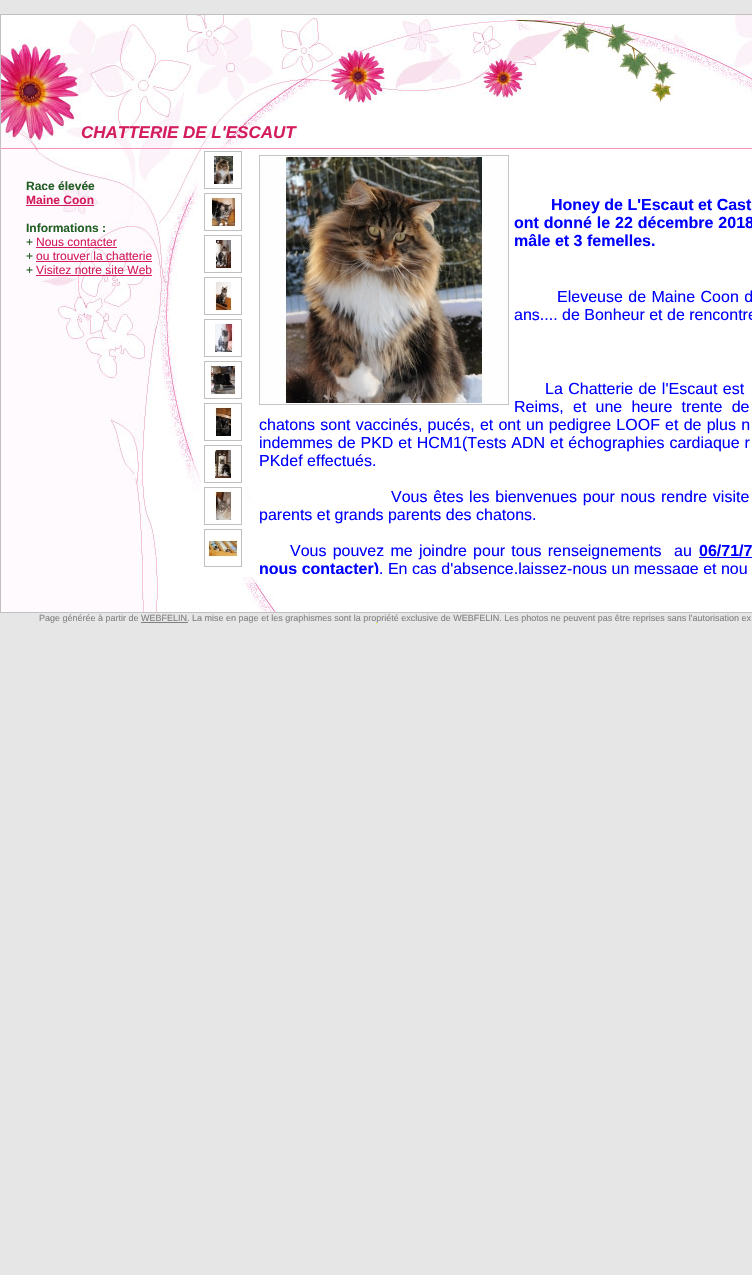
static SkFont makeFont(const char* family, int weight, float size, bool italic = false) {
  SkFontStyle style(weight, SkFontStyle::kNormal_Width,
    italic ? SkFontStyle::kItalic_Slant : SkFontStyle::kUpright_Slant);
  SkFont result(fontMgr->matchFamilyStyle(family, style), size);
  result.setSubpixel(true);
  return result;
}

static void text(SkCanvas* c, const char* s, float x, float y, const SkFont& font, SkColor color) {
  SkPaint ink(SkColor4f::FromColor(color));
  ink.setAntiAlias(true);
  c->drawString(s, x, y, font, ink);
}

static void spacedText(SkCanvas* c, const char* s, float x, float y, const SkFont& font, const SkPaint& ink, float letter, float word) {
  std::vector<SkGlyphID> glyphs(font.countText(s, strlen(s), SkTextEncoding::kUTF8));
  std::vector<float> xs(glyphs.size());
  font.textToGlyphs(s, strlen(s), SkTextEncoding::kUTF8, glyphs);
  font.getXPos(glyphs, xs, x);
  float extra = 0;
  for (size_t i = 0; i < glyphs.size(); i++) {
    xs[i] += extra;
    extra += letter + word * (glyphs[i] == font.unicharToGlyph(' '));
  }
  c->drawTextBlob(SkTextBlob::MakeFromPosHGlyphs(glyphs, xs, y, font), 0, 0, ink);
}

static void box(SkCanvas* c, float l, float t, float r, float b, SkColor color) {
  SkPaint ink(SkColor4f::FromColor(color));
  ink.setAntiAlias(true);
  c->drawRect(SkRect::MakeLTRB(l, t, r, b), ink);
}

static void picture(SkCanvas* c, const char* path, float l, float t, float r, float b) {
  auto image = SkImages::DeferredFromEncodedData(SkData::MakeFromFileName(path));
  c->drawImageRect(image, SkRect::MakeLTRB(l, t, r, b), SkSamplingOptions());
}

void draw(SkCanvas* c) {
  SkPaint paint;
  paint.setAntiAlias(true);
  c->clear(0xffe6e6e6);
  box(c, 201, 113, 752, 612, 0xffffffff);
  paint.setStyle(SkPaint::kStroke_Style);
  paint.setStrokeWidth(1);
  paint.setColor(0xffc0c0c0);
  c->drawRect(SkRect::MakeLTRB(0.5f, 14.5f, 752.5f, 612.5f), paint);
  picture(c, "img_01.png", 1, 15, 752, 113);
  picture(c, "img_02.png", 1, 113, 266, 148);
  box(c, 1, 148, 752, 149, 0xfff98eb8);
  SkFont face1 = makeFont("Liberation Sans", 700, 17, true);
  text(c, "CHATTERIE DE L'ESCAUT", 81, 138, face1, 0xffd41d5e);
  picture(c, "img_03.png", 1, 149, 201, 577);
  SkFont face2 = makeFont("Liberation Sans", 700, 12);
  text(c, "Race élevée", 26, 190, face2, 0xff225f24);
  text(c, "Maine Coon", 26, 204, face2, 0xffd41d5e);
  box(c, 26, 205, 94, 206, 0xffd41d5e);
  text(c, "Informations :", 26, 232, face2, 0xff225f24);
  SkFont face3 = makeFont("Liberation Sans", 400, 12);
  text(c, "+", 26, 246, face3, 0xff225f24);
  text(c, "Nous contacter", 36, 246, face3, 0xffd41d5e);
  box(c, 36, 247, 117, 248, 0xffd41d5e);
  text(c, "+", 26, 260, face3, 0xff225f24);
  text(c, "ou trouver la chatterie", 36, 260, face3, 0xffd41d5e);
  box(c, 36, 261, 152, 262, 0xffd41d5e);
  text(c, "+", 26, 274, face3, 0xff225f24);
  text(c, "Visitez notre site Web", 36, 274, face3, 0xffd41d5e);
  box(c, 36, 275, 152, 276, 0xffd41d5e);
  c->drawRect(SkRect::MakeLTRB(204.5f, 151.5f, 241.5f, 188.5f), paint);
  picture(c, "img_04.png", 213, 155, 234, 185);
  c->drawRect(SkRect::MakeLTRB(204.5f, 193.5f, 241.5f, 230.5f), paint);
  picture(c, "img_05.png", 210, 197, 236, 227);
  c->drawRect(SkRect::MakeLTRB(204.5f, 235.5f, 241.5f, 272.5f), paint);
  picture(c, "img_06.png", 214, 239, 232, 269);
  c->drawRect(SkRect::MakeLTRB(204.5f, 277.5f, 241.5f, 314.5f), paint);
  picture(c, "img_07.png", 214, 282, 232, 311);
  c->drawRect(SkRect::MakeLTRB(204.5f, 319.5f, 241.5f, 356.5f), paint);
  picture(c, "img_08.png", 215, 323, 234, 352);
  c->drawRect(SkRect::MakeLTRB(204.5f, 361.5f, 241.5f, 398.5f), paint);
  picture(c, "img_09.png", 210, 365, 236, 395);
  c->drawRect(SkRect::MakeLTRB(204.5f, 403.5f, 241.5f, 440.5f), paint);
  picture(c, "img_10.png", 214, 407, 232, 436);
  c->drawRect(SkRect::MakeLTRB(204.5f, 445.5f, 241.5f, 482.5f), paint);
  picture(c, "img_11.png", 214, 449, 232, 479);
  c->drawRect(SkRect::MakeLTRB(204.5f, 487.5f, 241.5f, 524.5f), paint);
  picture(c, "img_12.png", 214, 491, 232, 521);
  c->drawRect(SkRect::MakeLTRB(204.5f, 529.5f, 241.5f, 566.5f), paint);
  picture(c, "img_13.png", 208, 539, 238, 557);
  picture(c, "img_14.png", 244, 482, 293, 577);
  picture(c, "img_15.png", 259, 155, 509, 405);
  SkFont face4 = makeFont("Liberation Sans", 700, 16);
  text(c, "Honey de L'Escaut et Cast", 551, 210, face4, 0xff0000ff);
  paint.setStyle(SkPaint::kFill_Style);
  paint.setColor(0xff0000ff);
  spacedText(c, "ont donné le 22 décembre 2018", 514, 228, face4, paint, 0, 0.5f);
  text(c, "mâle et 3 femelles.", 514, 246, face4, 0xff0000ff);
  SkFont face5 = makeFont("Liberation Sans", 400, 16);
  spacedText(c, "Eleveuse de Maine Coon d", 557, 302, face5, paint, 0, 1);
  text(c, "ans.... de Bonheur et de rencontre", 514, 320, face5, 0xff0000ff);
  spacedText(c, "La Chatterie de l'Escaut est", 545, 394, face5, paint, 0, 1);
  spacedText(c, "Reims, et une heure trente de", 514, 412, face5, paint, 0, 4.75f);
  spacedText(c, "chatons sont vaccinés, pucés, et ont un pedigree LOOF et de plus n", 259, 430, face5, paint, 0, 0.75f);
  spacedText(c, "indemmes de PKD et HCM1(Tests ADN et échographies cardiaque r", 259, 448, face5, paint, 0, 0.5f);
  text(c, "PKdef effectués.", 259, 466, face5, 0xff0000ff);
  spacedText(c, "Vous êtes les bienvenues pour nous rendre visite", 391, 502, face5, paint, 0, 1.25f);
  text(c, "parents et grands parents des chatons.", 259, 520, face5, 0xff0000ff);
  spacedText(c, "Vous pouvez me joindre pour tous renseignements  au", 290, 556, face5, paint, 0, 1.75f);
  text(c, "06/71/7", 699, 556, face4, 0xff0000ff);
  box(c, 699, 557, 752, 558, 0xff0000ff);
  c->save();
  c->clipRect(SkRect::MakeLTRB(259, 154, 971, 574));
  text(c, "nous contacter)", 259, 574, face4, 0xff0000ff);
  text(c, ". En cas d'absence,laissez-nous un message et nou", 379, 574, face5, 0xff0000ff);
  c->restore();
  picture(c, "img_16.png", 1, 577, 280, 612);
  SkFont face6 = makeFont("Liberation Sans", 400, 9);
  text(c, "Page générée à partir de WEBFELIN. La mise en page et les graphismes sont la propriété exclusive de WEBFELIN. Les photos ne peuvent pas être reprises sans l'autorisation ex", 39, 621, face6, 0xff808080);
  box(c, 141, 622, 188, 623, 0xff808080);
  box(c, 376, 623, 377, 624, 0xfffefe00);
}
